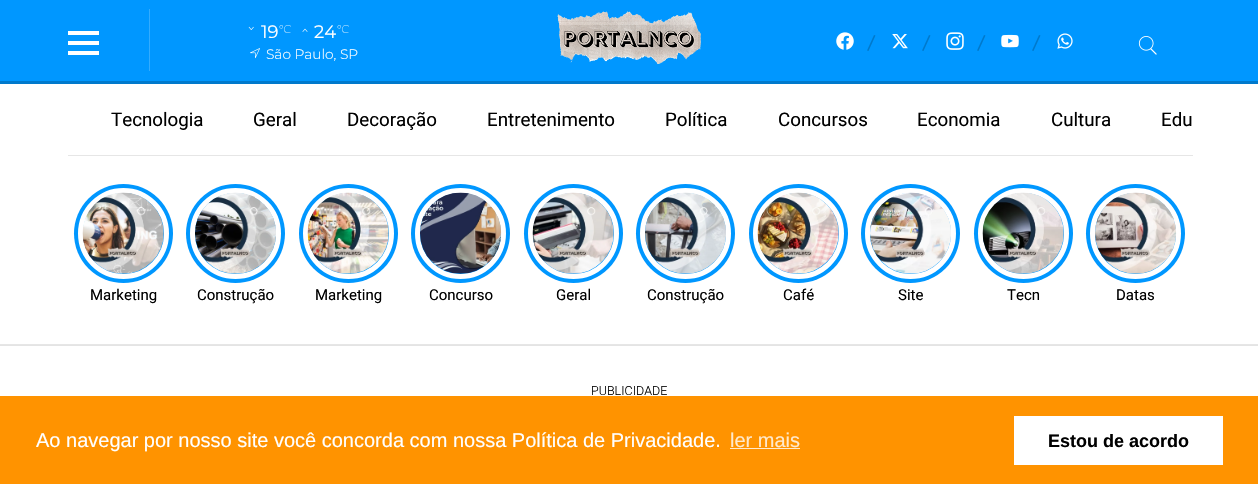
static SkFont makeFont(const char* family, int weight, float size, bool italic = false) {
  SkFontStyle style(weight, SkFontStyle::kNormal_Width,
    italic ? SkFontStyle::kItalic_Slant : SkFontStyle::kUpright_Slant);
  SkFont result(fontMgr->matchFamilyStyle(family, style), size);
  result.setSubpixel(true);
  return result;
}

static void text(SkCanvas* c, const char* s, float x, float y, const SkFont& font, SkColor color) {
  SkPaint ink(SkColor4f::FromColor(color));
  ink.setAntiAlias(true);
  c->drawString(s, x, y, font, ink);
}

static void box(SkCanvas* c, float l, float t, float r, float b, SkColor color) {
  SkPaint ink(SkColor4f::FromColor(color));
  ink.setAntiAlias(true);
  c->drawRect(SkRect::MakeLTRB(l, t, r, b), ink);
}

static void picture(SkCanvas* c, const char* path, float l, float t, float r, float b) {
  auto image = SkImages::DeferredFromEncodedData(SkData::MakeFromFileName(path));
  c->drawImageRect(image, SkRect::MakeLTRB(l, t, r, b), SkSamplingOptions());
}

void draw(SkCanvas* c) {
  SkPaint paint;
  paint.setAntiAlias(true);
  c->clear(0xffffffff);
  box(c, 0, 0, 1258, 81, 0xff0097ff);
  box(c, 149, 9, 150, 71, 0xff33acff);
  box(c, 68, 31, 99, 35, 0xffffffff);
  box(c, 68, 41, 99, 45, 0xffffffff);
  box(c, 68, 51, 99, 55, 0xffffffff);
  picture(c, "img_01.png", 248, 26, 254, 30);
  SkFont face1 = makeFont("Montserrat", 400, 18);
  text(c, "19", 261, 38, face1, 0xffffffff);
  SkFont face2 = makeFont("Montserrat", 100, 11);
  text(c, "°C", 279, 33, face2, 0xffffffff);
  picture(c, "img_02.png", 302, 28, 308, 32);
  text(c, "24", 314, 38, face1, 0xffffffff);
  text(c, "°C", 337, 33, face2, 0xffffffff);
  picture(c, "img_03.png", 250, 48, 260, 59);
  SkFont face3 = makeFont("Montserrat", 300, 13.75f);
  text(c, "São Paulo, SP", 266, 59, face3, 0xffffffff);
  picture(c, "img_04.png", 557, 11, 701, 64);
  picture(c, "img_05.png", 836, 32, 854, 50);
  paint.setColor(0xff0079cc);
  c->drawPath(SkPathBuilder().moveTo(874, 35).lineTo(875.5f, 35.5f).lineTo(868.5f, 51).lineTo(867, 50.5f).close().detach(), paint);
  picture(c, "img_06.png", 892, 34, 908, 49);
  c->drawPath(SkPathBuilder().moveTo(929, 35).lineTo(930.5f, 35.5f).lineTo(923.5f, 51).lineTo(922, 50.5f).close().detach(), paint);
  picture(c, "img_07.png", 946, 32, 964, 50);
  c->drawPath(SkPathBuilder().moveTo(984, 35).lineTo(985.5f, 35.5f).lineTo(978.5f, 51).lineTo(977, 50.5f).close().detach(), paint);
  picture(c, "img_08.png", 1001, 34, 1019, 48);
  c->drawPath(SkPathBuilder().moveTo(1039, 35).lineTo(1040.5f, 35.5f).lineTo(1033.5f, 51).lineTo(1032, 50.5f).close().detach(), paint);
  picture(c, "img_09.png", 1057, 33, 1073, 49);
  picture(c, "img_10.png", 1138, 36, 1157, 55);
  box(c, 0, 81, 1258, 84, 0xff0079cc);
  box(c, 68, 155, 1193, 156, 0xffe6e6e6);
  SkFont face4 = makeFont("Roboto", 400, 18.75f);
  text(c, "Tecnologia", 111, 126, face4, 0xff000000);
  text(c, "Geral", 253, 126, face4, 0xff000000);
  text(c, "Decoração", 347, 126, face4, 0xff000000);
  text(c, "Entretenimento", 487, 126, face4, 0xff000000);
  text(c, "Política", 665, 126, face4, 0xff000000);
  text(c, "Concursos", 778, 126, face4, 0xff000000);
  text(c, "Economia", 917, 126, face4, 0xff000000);
  text(c, "Cultura", 1051, 126, face4, 0xff000000);
  text(c, "Edu", 1161, 126, face4, 0xff000000);
  box(c, 0, 344, 1258, 345, 0xffe6e6e6);
  paint.setColor(0xff0097ff);
  c->drawCircle(123.5f, 233.5f, 49.5f, paint);
  paint.setStyle(SkPaint::kStroke_Style);
  paint.setStrokeWidth(5);
  paint.setColor(0xffffffff);
  c->drawCircle(123.5f, 233.5f, 43, paint);
  picture(c, "img_11.png", 82, 192, 164, 274);
  SkFont face5 = makeFont("Roboto", 400, 15);
  text(c, "Marketing", 90, 300, face5, 0xff000000);
  paint.setStyle(SkPaint::kFill_Style);
  paint.setColor(0xff0097ff);
  c->drawCircle(235.5f, 233.5f, 49.5f, paint);
  paint.setStyle(SkPaint::kStroke_Style);
  paint.setColor(0xffffffff);
  c->drawCircle(235.5f, 233.5f, 43, paint);
  picture(c, "img_12.png", 195, 192, 276, 274);
  text(c, "Construção", 197, 300, face5, 0xff000000);
  paint.setStyle(SkPaint::kFill_Style);
  paint.setColor(0xff0097ff);
  c->drawCircle(348.5f, 233.5f, 49.5f, paint);
  paint.setStyle(SkPaint::kStroke_Style);
  paint.setColor(0xffffffff);
  c->drawCircle(348.5f, 233.5f, 43, paint);
  picture(c, "img_13.png", 307, 192, 389, 274);
  text(c, "Marketing", 315, 300, face5, 0xff000000);
  paint.setStyle(SkPaint::kFill_Style);
  paint.setColor(0xff0097ff);
  c->drawCircle(460.5f, 233.5f, 49.5f, paint);
  paint.setStyle(SkPaint::kStroke_Style);
  paint.setColor(0xffffffff);
  c->drawCircle(460.5f, 233.5f, 43, paint);
  picture(c, "img_14.png", 420, 192, 502, 274);
  text(c, "Concurso", 429, 300, face5, 0xff000000);
  paint.setStyle(SkPaint::kFill_Style);
  paint.setColor(0xff0097ff);
  c->drawCircle(573.5f, 233.5f, 49.5f, paint);
  paint.setStyle(SkPaint::kStroke_Style);
  paint.setColor(0xffffffff);
  c->drawCircle(573.5f, 233.5f, 43, paint);
  picture(c, "img_15.png", 532, 192, 614, 274);
  text(c, "Geral", 556, 300, face5, 0xff000000);
  paint.setStyle(SkPaint::kFill_Style);
  paint.setColor(0xff0097ff);
  c->drawCircle(685.5f, 233.5f, 49.5f, paint);
  paint.setStyle(SkPaint::kStroke_Style);
  paint.setColor(0xffffffff);
  c->drawCircle(685.5f, 233.5f, 43, paint);
  picture(c, "img_16.png", 645, 192, 726, 274);
  text(c, "Construção", 647, 300, face5, 0xff000000);
  paint.setStyle(SkPaint::kFill_Style);
  paint.setColor(0xff0097ff);
  c->drawCircle(798.5f, 233.5f, 49.5f, paint);
  paint.setStyle(SkPaint::kStroke_Style);
  paint.setColor(0xffffffff);
  c->drawCircle(798.5f, 233.5f, 43, paint);
  picture(c, "img_17.png", 757, 192, 839, 274);
  text(c, "Café", 783, 300, face5, 0xff000000);
  paint.setStyle(SkPaint::kFill_Style);
  paint.setColor(0xff0097ff);
  c->drawCircle(910.5f, 233.5f, 49.5f, paint);
  paint.setStyle(SkPaint::kStroke_Style);
  paint.setColor(0xffffffff);
  c->drawCircle(910.5f, 233.5f, 43, paint);
  picture(c, "img_18.png", 870, 192, 951, 274);
  text(c, "Site", 898, 300, face5, 0xff000000);
  paint.setStyle(SkPaint::kFill_Style);
  paint.setColor(0xff0097ff);
  c->drawCircle(1023.5f, 233.5f, 49.5f, paint);
  paint.setStyle(SkPaint::kStroke_Style);
  paint.setColor(0xffffffff);
  c->drawCircle(1023.5f, 233.5f, 43, paint);
  picture(c, "img_19.png", 982, 192, 1064, 274);
  text(c, "Tecn", 1007, 300, face5, 0xff000000);
  paint.setStyle(SkPaint::kFill_Style);
  paint.setColor(0xff0097ff);
  c->drawCircle(1135.5f, 233.5f, 49.5f, paint);
  paint.setStyle(SkPaint::kStroke_Style);
  paint.setColor(0xffffffff);
  c->drawCircle(1135.5f, 233.5f, 43, paint);
  picture(c, "img_20.png", 1095, 192, 1177, 274);
  text(c, "Datas", 1116, 300, face5, 0xff000000);
  box(c, 0, 345, 1258, 346, 0xffe4e4e4);
  SkFont face6 = makeFont("Roboto", 300, 12.5f);
  text(c, "PUBLICIDADE", 591, 395, face6, 0xff000000);
  box(c, 0, 396, 1258, 484, 0xffff9300);
  SkFont face7 = makeFont("Liberation Sans", 400, 20);
  text(c, "Ao navegar por nosso site você concorda com nossa Política de Privacidade.", 36, 447, face7, 0xffffffff);
  text(c, "ler mais", 730, 447, face7, 0xffffe9cc);
  box(c, 730, 448, 800, 449, 0xffffe9cc);
  box(c, 1014, 416, 1223, 465, 0xffffffff);
  SkFont face8 = makeFont("Liberation Sans", 700, 18);
  text(c, "Estou de acordo", 1048, 447, face8, 0xff000000);
}
